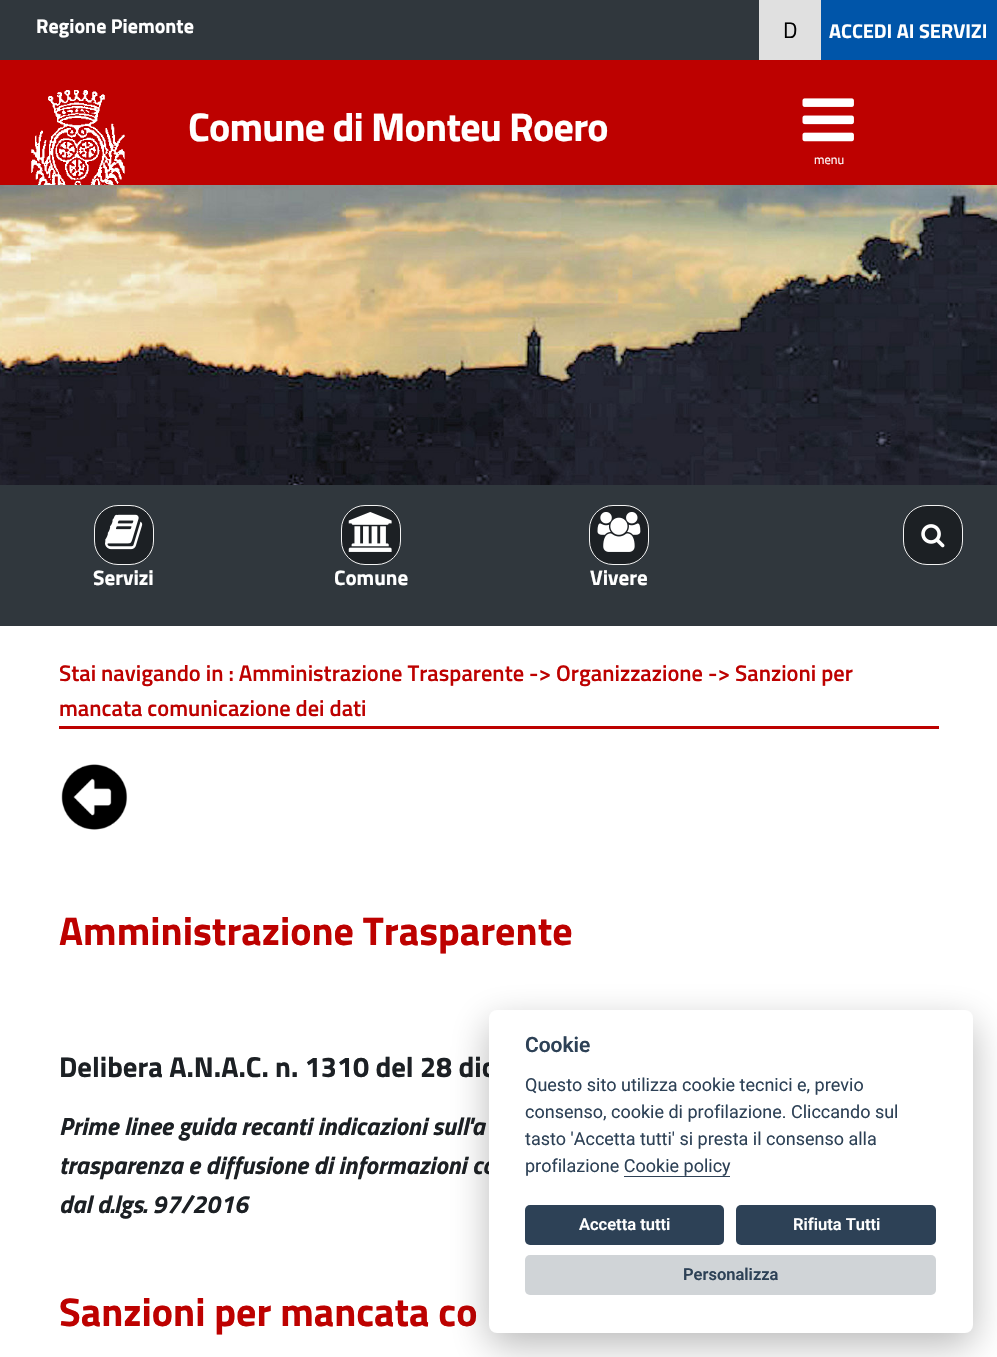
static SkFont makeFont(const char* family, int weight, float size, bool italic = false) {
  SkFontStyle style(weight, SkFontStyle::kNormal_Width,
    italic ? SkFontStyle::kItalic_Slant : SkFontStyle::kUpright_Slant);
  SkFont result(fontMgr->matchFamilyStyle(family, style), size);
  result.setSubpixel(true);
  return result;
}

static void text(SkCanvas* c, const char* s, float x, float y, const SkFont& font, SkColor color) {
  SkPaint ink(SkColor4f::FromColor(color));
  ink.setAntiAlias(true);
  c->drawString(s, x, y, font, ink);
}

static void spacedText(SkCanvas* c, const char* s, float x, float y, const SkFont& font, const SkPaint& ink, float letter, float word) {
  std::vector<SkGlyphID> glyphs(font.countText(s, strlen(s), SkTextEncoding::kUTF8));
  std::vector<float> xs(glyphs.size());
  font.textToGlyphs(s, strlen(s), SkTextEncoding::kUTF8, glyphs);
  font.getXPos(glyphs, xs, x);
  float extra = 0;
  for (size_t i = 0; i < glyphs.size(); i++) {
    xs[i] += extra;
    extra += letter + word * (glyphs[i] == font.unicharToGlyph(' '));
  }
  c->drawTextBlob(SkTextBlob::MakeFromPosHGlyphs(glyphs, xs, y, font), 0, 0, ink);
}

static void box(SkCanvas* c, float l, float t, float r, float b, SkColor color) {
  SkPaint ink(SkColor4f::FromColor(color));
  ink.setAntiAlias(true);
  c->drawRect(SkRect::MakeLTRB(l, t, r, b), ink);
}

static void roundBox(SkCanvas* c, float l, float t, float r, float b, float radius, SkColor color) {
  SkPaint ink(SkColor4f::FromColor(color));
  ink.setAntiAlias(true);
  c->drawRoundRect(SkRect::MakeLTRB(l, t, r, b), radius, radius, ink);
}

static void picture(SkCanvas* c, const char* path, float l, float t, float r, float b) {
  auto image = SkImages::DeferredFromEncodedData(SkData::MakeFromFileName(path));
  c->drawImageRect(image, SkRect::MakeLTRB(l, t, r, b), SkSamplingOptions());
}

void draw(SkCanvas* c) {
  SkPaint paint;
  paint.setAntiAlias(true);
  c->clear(0xffbd0100);
  box(c, 0, 0, 759, 60, 0xff30373d);
  SkFont face1 = makeFont("Titillium Web", 700, 20);
  text(c, "Regione Piemonte", 36, 33, face1, 0xffffffff);
  box(c, 821, 0, 997, 60, 0xff0055a9);
  text(c, "ACCEDI AI SERVIZI", 829, 38, face1, 0xffffffff);
  box(c, 759, 0, 821, 60, 0xffe0e0e0);
  SkFont face2 = makeFont("Titillium Web", 400, 22.5f);
  text(c, "D", 783, 38, face2, 0xff000000);
  picture(c, "img_01.png", 31, 90, 125, 185);
  SkFont face3 = makeFont("Titillium Web", 700, 40);
  paint.setColor(0xffffffff);
  spacedText(c, "Comune di Monteu Roero", 188, 141, face3, paint, -0.8f, 0);
  picture(c, "img_02.png", 802, 98, 854, 142);
  SkFont face4 = makeFont("Titillium Web", 400, 12.5f);
  text(c, "menu", 814, 164, face4, 0xffffffff);
  picture(c, "img_03.png", 0, 185, 997, 485);
  box(c, 0, 626, 997, 1357, 0xffffffff);
  box(c, 0, 485, 997, 626, 0xff30373d);
  paint.setColor(0xff1c2024);
  c->drawRoundRect(SkRect::MakeLTRB(903.5f, 505.5f, 962.5f, 564.5f), 23.5f, 23.5f, paint);
  paint.setStyle(SkPaint::kStroke_Style);
  paint.setStrokeWidth(1);
  paint.setColor(0xfff2f2f2);
  c->drawRoundRect(SkRect::MakeLTRB(903.5f, 505.5f, 962.5f, 564.5f), 23.5f, 23.5f, paint);
  picture(c, "img_04.png", 921, 524, 945, 548);
  paint.setStyle(SkPaint::kFill_Style);
  paint.setColor(0xff1c2024);
  c->drawRoundRect(SkRect::MakeLTRB(94.5f, 505.5f, 153.5f, 564.5f), 23.5f, 23.5f, paint);
  paint.setStyle(SkPaint::kStroke_Style);
  paint.setColor(0xfff2f2f2);
  c->drawRoundRect(SkRect::MakeLTRB(94.5f, 505.5f, 153.5f, 564.5f), 23.5f, 23.5f, paint);
  picture(c, "img_05.png", 105, 514, 143, 550);
  SkFont face5 = makeFont("Titillium Web", 700, 21);
  text(c, "Servizi", 93, 585, face5, 0xffffffff);
  paint.setStyle(SkPaint::kFill_Style);
  paint.setColor(0xff1c2024);
  c->drawRoundRect(SkRect::MakeLTRB(341.5f, 505.5f, 400.5f, 564.5f), 23.5f, 23.5f, paint);
  paint.setStyle(SkPaint::kStroke_Style);
  paint.setColor(0xfff2f2f2);
  c->drawRoundRect(SkRect::MakeLTRB(341.5f, 505.5f, 400.5f, 564.5f), 23.5f, 23.5f, paint);
  picture(c, "img_06.png", 348, 512, 392, 552);
  text(c, "Comune", 334, 585, face5, 0xffffffff);
  paint.setStyle(SkPaint::kFill_Style);
  paint.setColor(0xff1c2024);
  c->drawRoundRect(SkRect::MakeLTRB(589.5f, 505.5f, 648.5f, 564.5f), 23.5f, 23.5f, paint);
  paint.setStyle(SkPaint::kStroke_Style);
  paint.setColor(0xfff2f2f2);
  c->drawRoundRect(SkRect::MakeLTRB(589.5f, 505.5f, 648.5f, 564.5f), 23.5f, 23.5f, paint);
  picture(c, "img_07.png", 597, 512, 641, 552);
  text(c, "Vivere", 590, 585, face5, 0xffffffff);
  box(c, 59, 726, 939, 729, 0xffbd0100);
  SkFont face6 = makeFont("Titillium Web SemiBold", 600, 22.5f);
  text(c, "Stai navigando in : Amministrazione Trasparente -> Organizzazione -> Sanzioni per", 59, 681, face6, 0xffbd0100);
  text(c, "mancata comunicazione dei dati", 59, 716, face6, 0xffbd0100);
  picture(c, "img_08.png", 61, 764, 128, 830);
  text(c, "Amministrazione Trasparente", 59, 945, face3, 0xffbd0100);
  SkFont face7 = makeFont("Titillium Web", 700, 28.75f);
  text(c, "Delibera A.N.A.C. n. 1310 del 28 dic", 59, 1077, face7, 0xff1c2024);
  SkFont face8 = makeFont("Titillium Web", 700, 25, true);
  text(c, "Prime linee guida recanti indicazioni sull'a", 59, 1135, face8, 0xff1c2024);
  text(c, "trasparenza e diffusione di informazioni co", 59, 1174, face8, 0xff1c2024);
  text(c, "dal d.lgs. 97/2016", 59, 1213, face8, 0xff1c2024);
  text(c, "Sanzioni per mancata co", 59, 1326, face3, 0xffbd0100);
  paint.setStyle(SkPaint::kFill_Style);
  paint.setColor(0x47020203);
  paint.setMaskFilter(SkMaskFilter::MakeBlur(kNormal_SkBlurStyle, 19));
  c->drawRoundRect(SkRect::MakeLTRB(489, 1023, 973, 1345), 8, 8, paint);
  paint.setMaskFilter(nullptr);
  roundBox(c, 489, 1010, 973, 1333, 8, 0xffffffff);
  SkFont face9 = makeFont("Roboto", 600, 21);
  text(c, "Cookie", 525, 1052, face9, 0xff2d4156);
  SkFont face10 = makeFont("Roboto", 400, 18);
  text(c, "Questo sito utilizza cookie tecnici e, previo", 525, 1091, face10, 0xff2d4156);
  text(c, "consenso, cookie di profilazione. Cliccando sul", 525, 1118, face10, 0xff2d4156);
  text(c, "tasto 'Accetta tutti' si presta il consenso alla", 525, 1145, face10, 0xff2d4156);
  text(c, "profilazione Cookie policy", 525, 1172, face10, 0xff2d4156);
  box(c, 624, 1176, 730, 1177, 0xff2d4156);
  roundBox(c, 525, 1205, 724, 1245, 5, 0xff2d4156);
  SkFont face11 = makeFont("Roboto", 600, 16.5f);
  text(c, "Accetta tutti", 579, 1230, face11, 0xffffffff);
  roundBox(c, 736, 1205, 936, 1245, 5, 0xff2d4156);
  text(c, "Rifiuta Tutti", 793, 1230, face11, 0xffffffff);
  roundBox(c, 525, 1255, 936, 1295, 5, 0xffd0d4d7);
  text(c, "Personalizza", 683, 1280, face11, 0xff2d4156);
}
